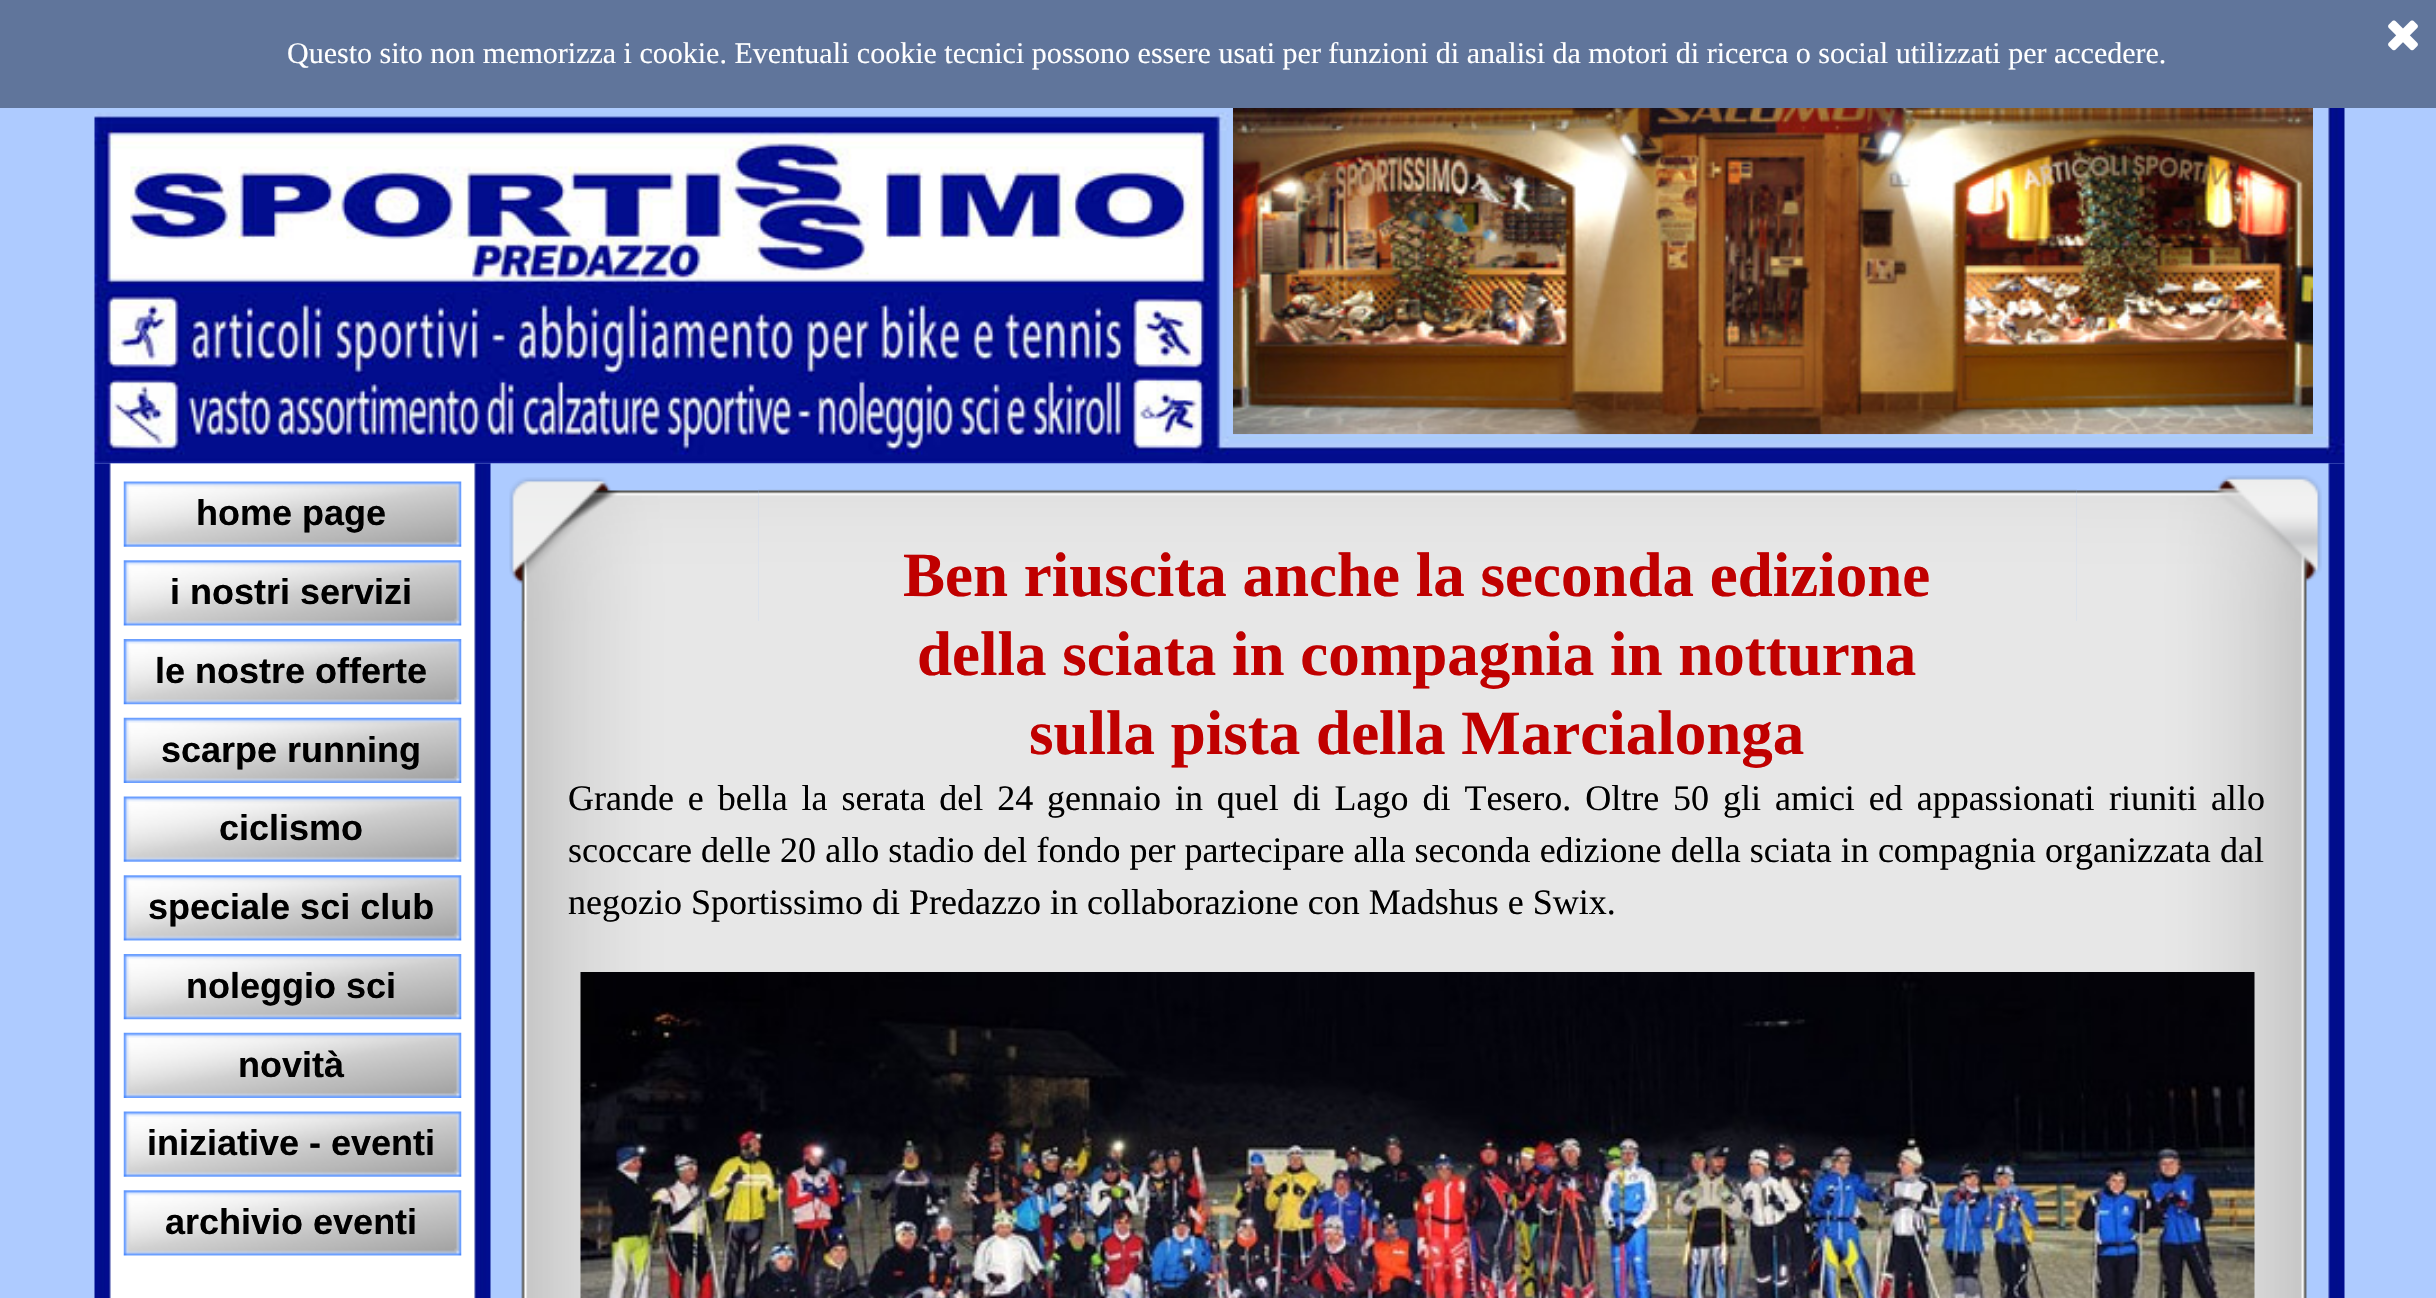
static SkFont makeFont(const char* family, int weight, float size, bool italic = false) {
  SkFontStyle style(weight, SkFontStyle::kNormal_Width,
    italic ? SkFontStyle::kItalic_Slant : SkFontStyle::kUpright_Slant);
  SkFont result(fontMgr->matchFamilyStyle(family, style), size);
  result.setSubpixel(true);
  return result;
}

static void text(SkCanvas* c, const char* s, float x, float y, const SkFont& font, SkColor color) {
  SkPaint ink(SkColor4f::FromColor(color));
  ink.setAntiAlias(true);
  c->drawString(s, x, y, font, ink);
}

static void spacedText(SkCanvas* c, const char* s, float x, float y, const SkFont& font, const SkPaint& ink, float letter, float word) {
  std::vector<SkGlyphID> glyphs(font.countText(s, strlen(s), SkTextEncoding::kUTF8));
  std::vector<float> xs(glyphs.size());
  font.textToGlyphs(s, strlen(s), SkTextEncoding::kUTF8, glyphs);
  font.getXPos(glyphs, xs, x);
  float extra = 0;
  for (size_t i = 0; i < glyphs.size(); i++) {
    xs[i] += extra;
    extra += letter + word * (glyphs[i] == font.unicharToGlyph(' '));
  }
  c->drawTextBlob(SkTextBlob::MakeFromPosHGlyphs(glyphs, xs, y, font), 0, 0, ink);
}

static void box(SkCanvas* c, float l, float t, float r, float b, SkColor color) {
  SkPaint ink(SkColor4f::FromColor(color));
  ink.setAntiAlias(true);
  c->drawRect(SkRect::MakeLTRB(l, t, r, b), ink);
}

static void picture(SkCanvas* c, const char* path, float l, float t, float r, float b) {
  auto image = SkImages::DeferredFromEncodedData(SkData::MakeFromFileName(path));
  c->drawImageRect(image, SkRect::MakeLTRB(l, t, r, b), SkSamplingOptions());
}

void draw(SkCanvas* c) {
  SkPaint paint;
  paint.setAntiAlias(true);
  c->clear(0xffaecbff);
  box(c, 0, 0, 2436, 108, 0xff60759b);
  picture(c, "img_01.png", 2388, 20, 2418, 51);
  SkFont face1 = makeFont("Liberation Serif", 400, 30);
  text(c, "Questo sito non memorizza i cookie. Eventuali cookie tecnici possono essere usati per funzioni di analisi da motori di ricerca o social utilizzati per accedere.", 287, 63, face1, 0xffffffff);
  picture(c, "img_02.png", 94, 108, 2345, 464);
  picture(c, "img_03.png", 1233, 108, 2313, 435);
  picture(c, "img_11.png", 490, 463, 2345, 1298);
  picture(c, "img_04.png", 94, 463, 491, 1298);
  picture(c, "img_05.png", 123, 481, 462, 547);
  SkFont face2 = makeFont("Liberation Sans", 700, 36);
  text(c, "home page", 196, 525, face2, 0xff000000);
  picture(c, "img_06.png", 123, 560, 462, 626);
  text(c, "i nostri servizi", 170, 604, face2, 0xff000000);
  picture(c, "img_07.png", 123, 639, 462, 705);
  text(c, "le nostre offerte", 155, 683, face2, 0xff000000);
  picture(c, "img_08.png", 123, 717, 462, 783);
  text(c, "scarpe running", 161, 762, face2, 0xff000000);
  picture(c, "img_05.png", 123, 796, 462, 862);
  text(c, "ciclismo", 219, 840, face2, 0xff000000);
  picture(c, "img_09.png", 123, 875, 462, 941);
  text(c, "speciale sci club", 148, 919, face2, 0xff000000);
  picture(c, "img_07.png", 123, 954, 462, 1020);
  text(c, "noleggio sci", 186, 998, face2, 0xff000000);
  picture(c, "img_08.png", 123, 1032, 462, 1098);
  text(c, "novità", 238, 1077, face2, 0xff000000);
  picture(c, "img_10.png", 123, 1111, 462, 1177);
  text(c, "iniziative - eventi", 147, 1155, face2, 0xff000000);
  picture(c, "img_09.png", 123, 1190, 462, 1256);
  text(c, "archivio eventi", 165, 1234, face2, 0xff000000);
  picture(c, "img_13.png", 758, 489, 2077, 621);
  picture(c, "img_12.png", 509, 477, 759, 621);
  picture(c, "img_14.png", 2076, 475, 2322, 621);
  picture(c, "img_15.png", 521, 621, 758, 1298);
  box(c, 758, 621, 2077, 972, 0xffe7e7e7);
  picture(c, "img_16.png", 2077, 621, 2307, 1298);
  SkFont face3 = makeFont("Liberation Serif", 700, 63);
  text(c, "Ben riuscita anche la seconda edizione", 903, 596, face3, 0xffc00000);
  text(c, "della sciata in compagnia in notturna", 917, 675, face3, 0xffc00000);
  text(c, "sulla pista della Marcialonga", 1029, 754, face3, 0xffc00000);
  SkFont face4 = makeFont("Liberation Serif", 400, 36);
  paint.setColor(0xff000000);
  spacedText(c, "Grande e bella la serata del 24 gennaio in quel di Lago di Tesero. Oltre 50 gli amici ed appassionati", 568, 810, face4, paint, 0, 4.9f);
  spacedText(c, "riuniti allo", 2109, 810, face4, paint, 0, 4.9f);
  spacedText(c, "scoccare delle 20 allo stadio del fondo per partecipare alla seconda edizione della sciata in compagnia organizzata dal", 568, 862, face4, paint, 0, 0.1f);
  text(c, "negozio Sportissimo di Predazzo in collaborazione con Madshus e Swix.", 568, 914, face4, 0xff000000);
  picture(c, "img_17.png", 580, 972, 2255, 1298);
}
